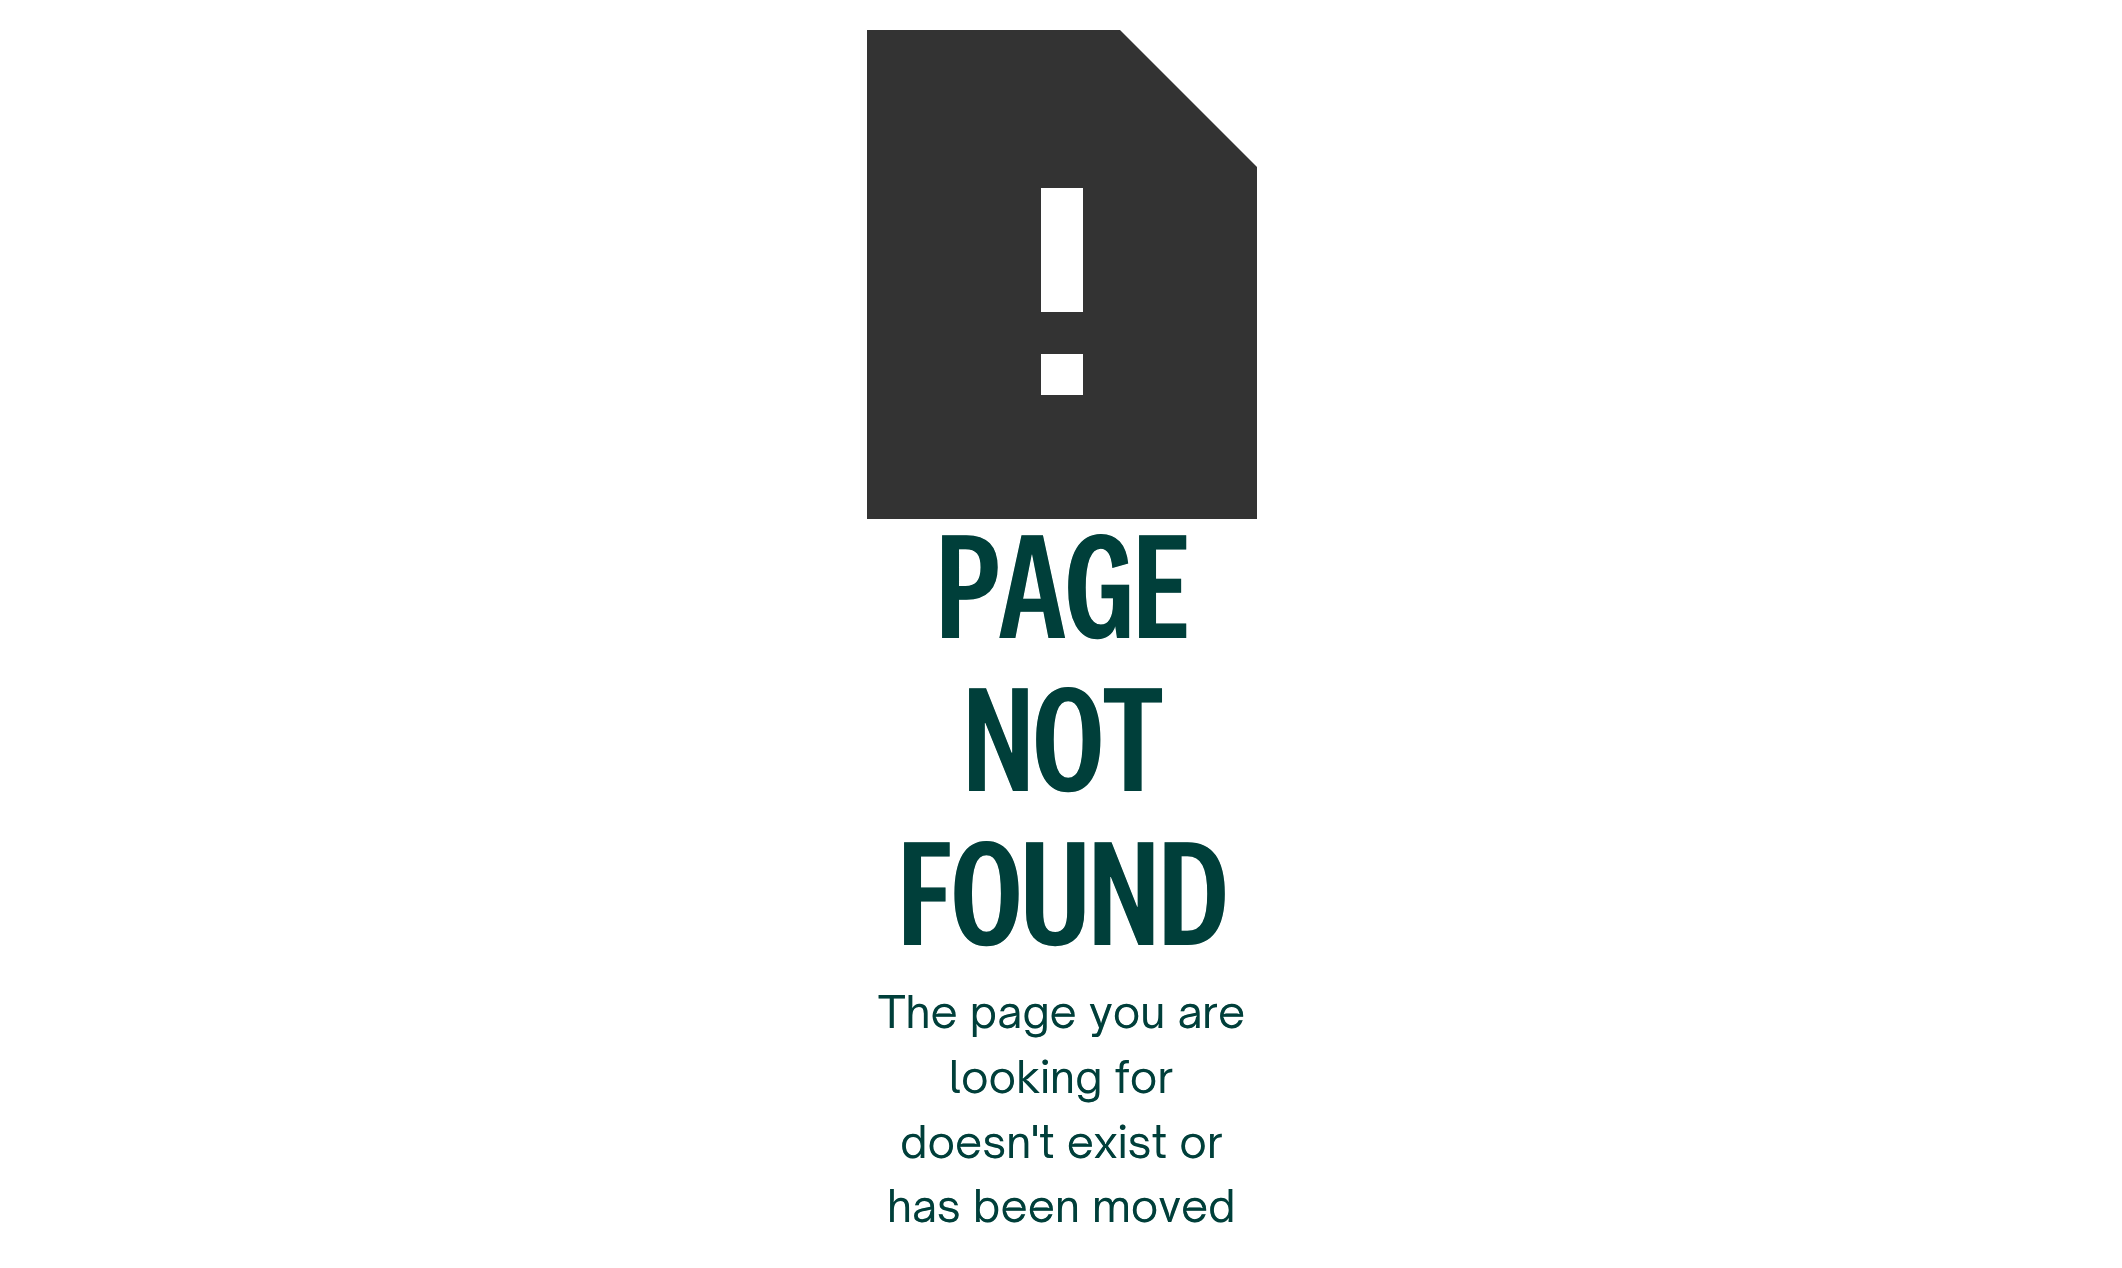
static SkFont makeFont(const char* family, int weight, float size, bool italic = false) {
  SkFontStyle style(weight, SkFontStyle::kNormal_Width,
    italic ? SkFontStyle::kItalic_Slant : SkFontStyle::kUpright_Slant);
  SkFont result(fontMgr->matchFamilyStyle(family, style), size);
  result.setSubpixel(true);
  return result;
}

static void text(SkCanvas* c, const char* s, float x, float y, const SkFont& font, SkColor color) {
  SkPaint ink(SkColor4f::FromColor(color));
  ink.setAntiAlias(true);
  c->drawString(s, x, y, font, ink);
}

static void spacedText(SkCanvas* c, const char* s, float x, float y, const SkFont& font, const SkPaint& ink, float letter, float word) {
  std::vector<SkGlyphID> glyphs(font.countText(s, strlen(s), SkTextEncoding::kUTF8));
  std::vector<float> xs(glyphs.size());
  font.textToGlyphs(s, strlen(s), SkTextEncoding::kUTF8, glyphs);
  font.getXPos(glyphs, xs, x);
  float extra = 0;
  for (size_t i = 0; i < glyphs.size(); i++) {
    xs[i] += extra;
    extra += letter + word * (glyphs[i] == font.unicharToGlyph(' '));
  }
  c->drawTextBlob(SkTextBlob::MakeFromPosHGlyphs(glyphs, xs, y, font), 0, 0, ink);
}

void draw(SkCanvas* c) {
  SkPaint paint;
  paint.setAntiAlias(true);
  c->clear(0xffffffff);
  c->save();
  c->clipRect(SkRect::MakeLTRB(867, 30, 1257, 519));
  paint.setColor(0xff333333);
  c->drawPath(SkPathBuilder(SkPathFillType::kEvenOdd).moveTo(867, 30).lineTo(1120, 30).lineTo(1257, 167).lineTo(1257, 520).lineTo(867, 520).close().moveTo(1041, 188).lineTo(1083, 188).lineTo(1083, 312).lineTo(1041, 312).close().moveTo(1041, 354).lineTo(1083, 354).lineTo(1083, 395).lineTo(1041, 395).close().detach(), paint);
  c->restore();
  SkFont face1 = makeFont("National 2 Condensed", 500, 154);
  paint.setColor(0xff003f3a);
  spacedText(c, "PAGE", 935, 638, face1, paint, -3, 0);
  spacedText(c, "NOT", 962, 791, face1, paint, -3, 0);
  spacedText(c, "FOUND", 897, 945, face1, paint, -3, 0);
  SkFont face2 = makeFont("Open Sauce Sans", 400, 43.25f);
  text(c, "The page you are", 878, 1028, face2, 0xff003f3a);
  text(c, "looking for", 949, 1093, face2, 0xff003f3a);
  text(c, "doesn't exist or", 900, 1158, face2, 0xff003f3a);
  text(c, "has been moved", 887, 1222, face2, 0xff003f3a);
}
